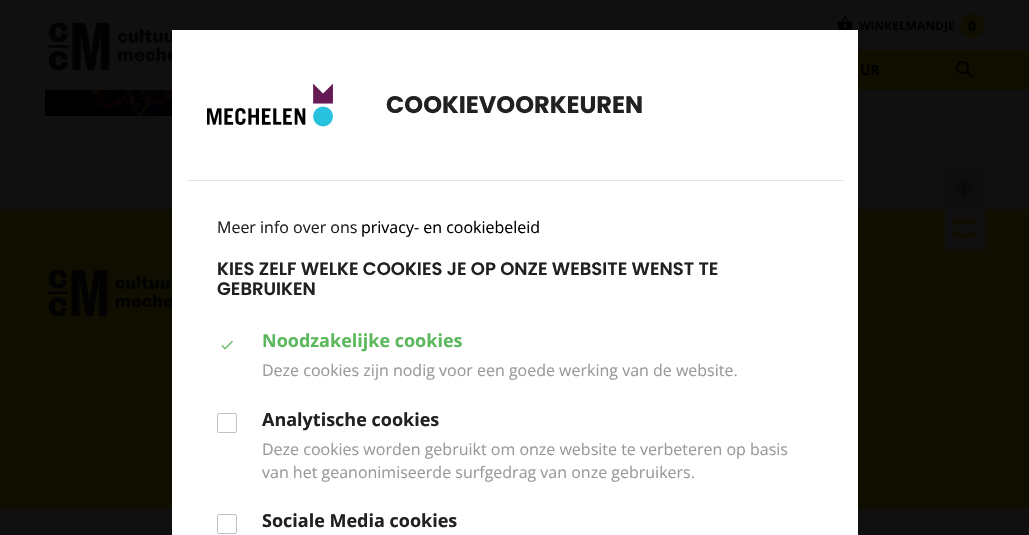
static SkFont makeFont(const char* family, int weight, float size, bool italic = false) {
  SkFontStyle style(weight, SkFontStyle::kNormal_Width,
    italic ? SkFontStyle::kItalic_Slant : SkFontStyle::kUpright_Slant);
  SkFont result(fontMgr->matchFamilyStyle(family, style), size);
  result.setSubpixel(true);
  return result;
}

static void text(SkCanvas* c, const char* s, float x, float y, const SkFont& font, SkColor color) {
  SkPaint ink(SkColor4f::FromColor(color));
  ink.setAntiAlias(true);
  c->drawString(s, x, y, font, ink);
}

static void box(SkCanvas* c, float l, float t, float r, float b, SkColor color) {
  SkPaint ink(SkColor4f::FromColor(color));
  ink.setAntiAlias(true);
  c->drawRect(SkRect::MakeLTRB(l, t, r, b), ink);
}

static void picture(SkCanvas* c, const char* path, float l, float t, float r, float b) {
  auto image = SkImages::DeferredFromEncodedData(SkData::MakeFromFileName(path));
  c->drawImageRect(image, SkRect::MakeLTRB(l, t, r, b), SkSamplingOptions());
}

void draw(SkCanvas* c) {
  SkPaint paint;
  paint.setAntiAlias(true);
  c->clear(0xff101010);
  box(c, 858, 50, 1029, 90, 0xff100e00);
  picture(c, "img_01.png", 47, 22, 172, 71);
  picture(c, "img_02.png", 836, 16, 854, 30);
  SkFont face1 = makeFont("Open Sans", 700, 12);
  text(c, "WINKELMANDJE", 859, 30, face1, 0xff000000);
  paint.setColor(0xff100e00);
  c->drawCircle(972.5f, 25.5f, 12.5f, paint);
  SkFont face2 = makeFont("Open Sans", 700, 14);
  text(c, "0", 968, 31, face2, 0xff000000);
  text(c, "UR", 860, 75, face2, 0xff000000);
  picture(c, "img_03.png", 956, 61, 974, 79);
  picture(c, "img_04.png", 45, 90, 172, 116);
  box(c, 0, 209, 1029, 509, 0xff100e00);
  box(c, 172, 30, 858, 535, 0xffffffff);
  box(c, 187, 180, 843, 181, 0xffe2e2e2);
  picture(c, "img_05.png", 207, 83, 333, 127);
  SkFont face3 = makeFont("Poppins", 700, 24);
  text(c, "COOKIEVOORKEUREN", 386, 113, face3, 0xff212121);
  SkFont face4 = makeFont("Open Sans", 400, 16);
  text(c, "Meer info over ons", 217, 233, face4, 0xff212121);
  text(c, "privacy- en cookiebeleid", 361, 233, face4, 0xff000000);
  SkFont face5 = makeFont("Poppins", 600, 18);
  text(c, "KIES ZELF WELKE COOKIES JE OP ONZE WEBSITE WENST TE", 217, 275, face5, 0xff212121);
  text(c, "GEBRUIKEN", 217, 295, face5, 0xff212121);
  picture(c, "img_06.png", 221, 340, 233, 350);
  SkFont face6 = makeFont("Open Sans", 700, 18);
  text(c, "Noodzakelijke cookies", 262, 347, face6, 0xff5cb85c);
  text(c, "Deze cookies zijn nodig voor een goede werking van de website.", 262, 376, face4, 0xff999999);
  paint.setStyle(SkPaint::kStroke_Style);
  paint.setStrokeWidth(1);
  paint.setColor(0xffc1c1c1);
  c->drawRoundRect(SkRect::MakeLTRB(217.5f, 413.5f, 236.5f, 432.5f), 1.5f, 1.5f, paint);
  text(c, "Analytische cookies", 262, 426, face6, 0xff212121);
  text(c, "Deze cookies worden gebruikt om onze website te verbeteren op basis", 262, 455, face4, 0xff999999);
  text(c, "van het geanonimiseerde surfgedrag van onze gebruikers.", 262, 478, face4, 0xff999999);
  c->drawRoundRect(SkRect::MakeLTRB(217.5f, 514.5f, 236.5f, 533.5f), 1.5f, 1.5f, paint);
  text(c, "Sociale Media cookies", 262, 527, face6, 0xff212121);
  box(c, 945, 169, 985, 209, 0xff0d0d0d);
  picture(c, "img_07.png", 955, 181, 973, 198);
  box(c, 945, 209, 985, 249, 0xff101010);
  picture(c, "img_08.png", 952, 219, 978, 239);
  picture(c, "img_09.png", 47, 269, 172, 317);
}
